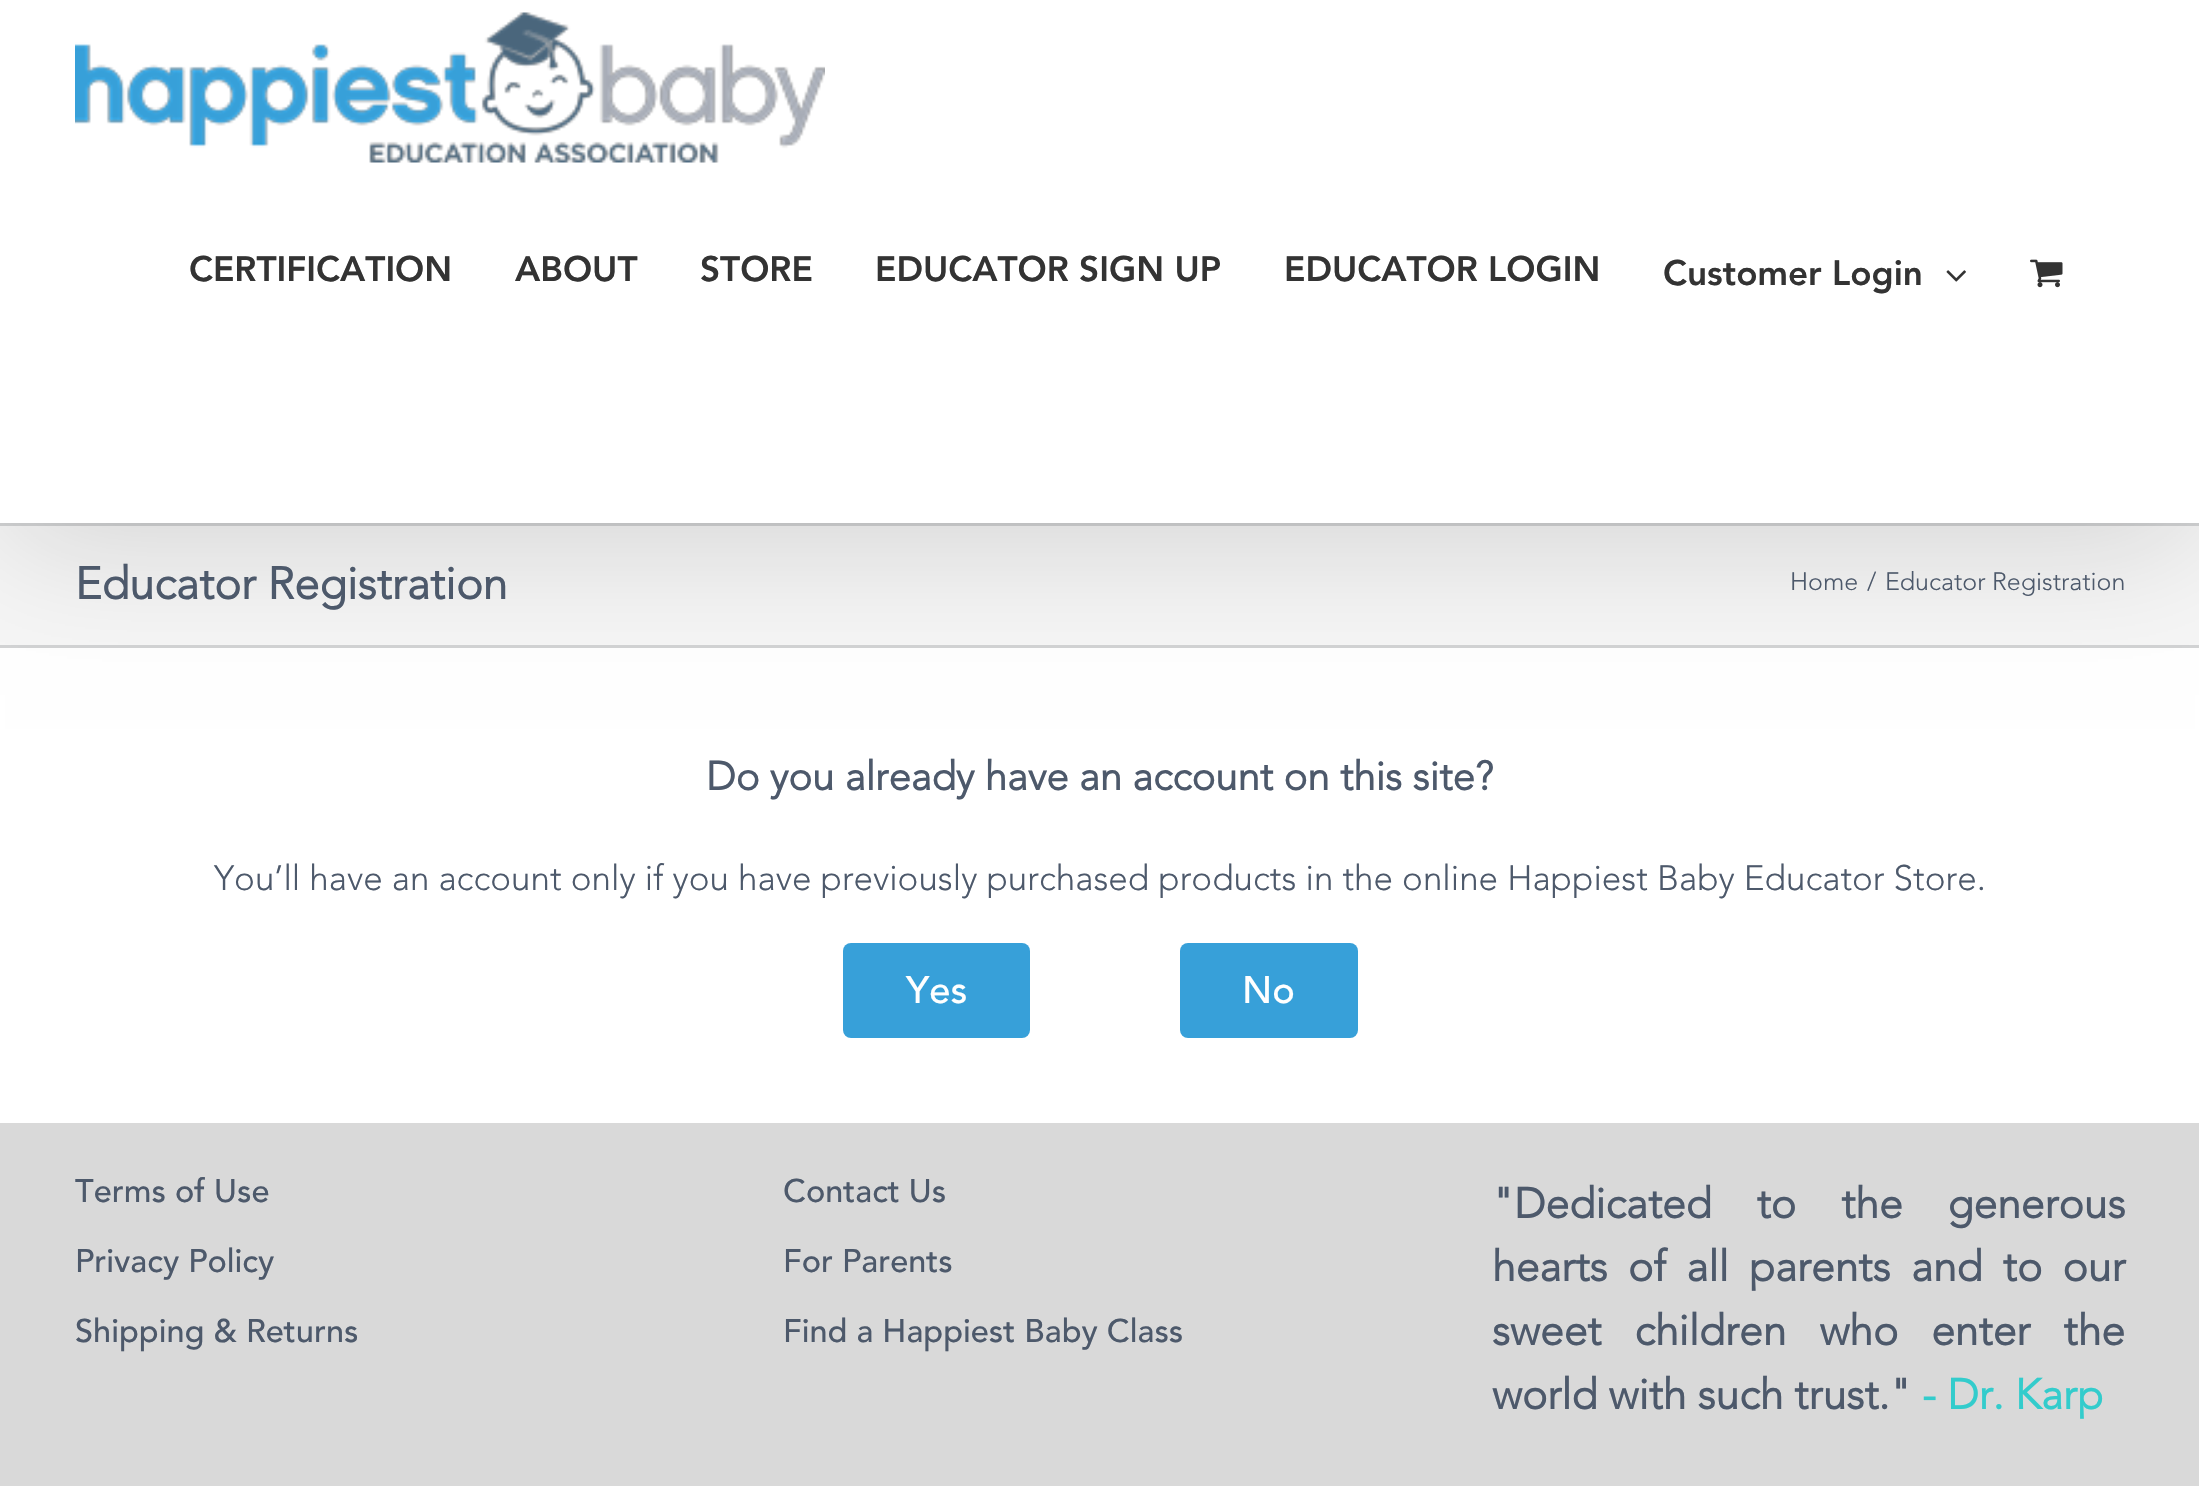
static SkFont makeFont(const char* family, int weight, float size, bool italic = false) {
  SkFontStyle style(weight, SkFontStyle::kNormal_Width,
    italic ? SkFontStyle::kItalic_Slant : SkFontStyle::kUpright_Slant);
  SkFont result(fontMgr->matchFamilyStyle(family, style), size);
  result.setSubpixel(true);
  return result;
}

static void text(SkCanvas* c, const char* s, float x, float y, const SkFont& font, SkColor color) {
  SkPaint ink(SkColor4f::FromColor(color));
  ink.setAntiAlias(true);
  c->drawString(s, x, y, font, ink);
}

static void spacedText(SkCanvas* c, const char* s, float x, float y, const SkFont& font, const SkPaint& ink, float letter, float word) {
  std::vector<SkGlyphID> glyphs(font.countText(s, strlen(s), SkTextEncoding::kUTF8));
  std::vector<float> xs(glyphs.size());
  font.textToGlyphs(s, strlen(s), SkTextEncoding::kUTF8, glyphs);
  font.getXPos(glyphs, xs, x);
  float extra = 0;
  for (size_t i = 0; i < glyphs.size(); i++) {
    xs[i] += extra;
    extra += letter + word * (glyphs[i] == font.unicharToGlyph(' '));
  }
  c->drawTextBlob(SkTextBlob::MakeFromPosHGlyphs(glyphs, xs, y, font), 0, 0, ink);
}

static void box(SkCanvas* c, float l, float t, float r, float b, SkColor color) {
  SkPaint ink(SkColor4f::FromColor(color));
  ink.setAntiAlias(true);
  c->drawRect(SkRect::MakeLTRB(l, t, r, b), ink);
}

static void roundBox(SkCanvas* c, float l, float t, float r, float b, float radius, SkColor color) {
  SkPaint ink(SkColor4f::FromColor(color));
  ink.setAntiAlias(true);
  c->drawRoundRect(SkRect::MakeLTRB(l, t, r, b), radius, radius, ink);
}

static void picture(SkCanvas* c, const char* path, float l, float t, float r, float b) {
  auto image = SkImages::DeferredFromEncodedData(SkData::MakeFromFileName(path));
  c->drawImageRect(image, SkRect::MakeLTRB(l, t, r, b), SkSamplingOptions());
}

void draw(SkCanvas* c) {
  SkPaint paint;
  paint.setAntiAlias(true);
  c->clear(0xffffffff);
  box(c, 0, 526, 2199, 645, 0xfff6f6f6);
  box(c, 0, 523, 2199, 526, 0xffd2d3d4);
  box(c, 0, 645, 2199, 648, 0xffd2d3d4);
  paint.setColor(0x24000000);
  paint.setMaskFilter(SkMaskFilter::MakeBlur(kNormal_SkBlurStyle, 62.5f));
  c->drawRect(SkRect::MakeLTRB(5, 30, 2195, 543), paint);
  paint.setMaskFilter(nullptr);
  box(c, 0, 0, 2199, 523, 0xffffffff);
  picture(c, "img_01.png", 75, 12, 825, 163);
  SkFont face1 = makeFont("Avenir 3", 400, 35);
  text(c, "CERTIFICATION", 189, 281, face1, 0xff333333);
  text(c, "ABOUT", 515, 281, face1, 0xff333333);
  text(c, "STORE", 700, 281, face1, 0xff333333);
  text(c, "EDUCATOR SIGN UP", 875, 281, face1, 0xff333333);
  text(c, "EDUCATOR LOGIN", 1284, 281, face1, 0xff333333);
  text(c, "Customer Login", 1663, 285, face1, 0xff333333);
  picture(c, "img_02.png", 1946, 270, 1966, 282);
  picture(c, "img_03.png", 2030, 259, 2063, 288);
  SkFont face2 = makeFont("Avenir", 700, 45);
  text(c, "Educator Registration", 75, 599, face2, 0xff4d596b);
  SkFont face3 = makeFont("Avenir", 400, 25);
  text(c, "Home", 1790, 590, face3, 0xff4d596b);
  text(c, "/", 1867, 590, face3, 0xff4d596b);
  text(c, "Educator Registration", 1885, 590, face3, 0xff4d596b);
  SkFont face4 = makeFont("Avenir", 700, 40);
  text(c, "Do you already have an account on this site?", 706, 790, face4, 0xff4d596b);
  SkFont face5 = makeFont("Avenir", 400, 35);
  text(c, "You’ll have an account only if you have previously purchased products in the online Happiest Baby Educator Store.", 214, 890, face5, 0xff4d596b);
  roundBox(c, 843, 943, 1030, 1038, 8, 0xff37a0d9);
  SkFont face6 = makeFont("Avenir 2", 400, 38);
  text(c, "Yes", 906, 1003, face6, 0xffffffff);
  roundBox(c, 1180, 943, 1358, 1038, 8, 0xff37a0d9);
  text(c, "No", 1242, 1003, face6, 0xffffffff);
  box(c, 0, 1123, 2199, 1486, 0xffd9d9d9);
  SkFont face7 = makeFont("Avenir 2", 400, 32.5f);
  text(c, "Terms of Use", 75, 1202, face7, 0xff4d596b);
  text(c, "Privacy Policy", 75, 1272, face7, 0xff4d596b);
  text(c, "Shipping & Returns", 75, 1342, face7, 0xff4d596b);
  text(c, "Contact Us", 783, 1202, face7, 0xff4d596b);
  text(c, "For Parents", 783, 1272, face7, 0xff4d596b);
  text(c, "Find a Happiest Baby Class", 783, 1342, face7, 0xff4d596b);
  SkFont face8 = makeFont("Avenir", 700, 42.5f);
  paint.setColor(0xff4d596b);
  spacedText(c, "\"Dedicated to the generous", 1492, 1218, face8, paint, 0, 34);
  spacedText(c, "hearts of all parents and to our", 1492, 1281, face8, paint, 0, 9.25f);
  spacedText(c, "sweet children who enter the", 1492, 1345, face8, paint, 0, 22);
  text(c, "world with such trust.\"", 1492, 1409, face8, 0xff4d596b);
  text(c, "- Dr. Karp", 1922, 1409, face8, 0xff33cccc);
}
